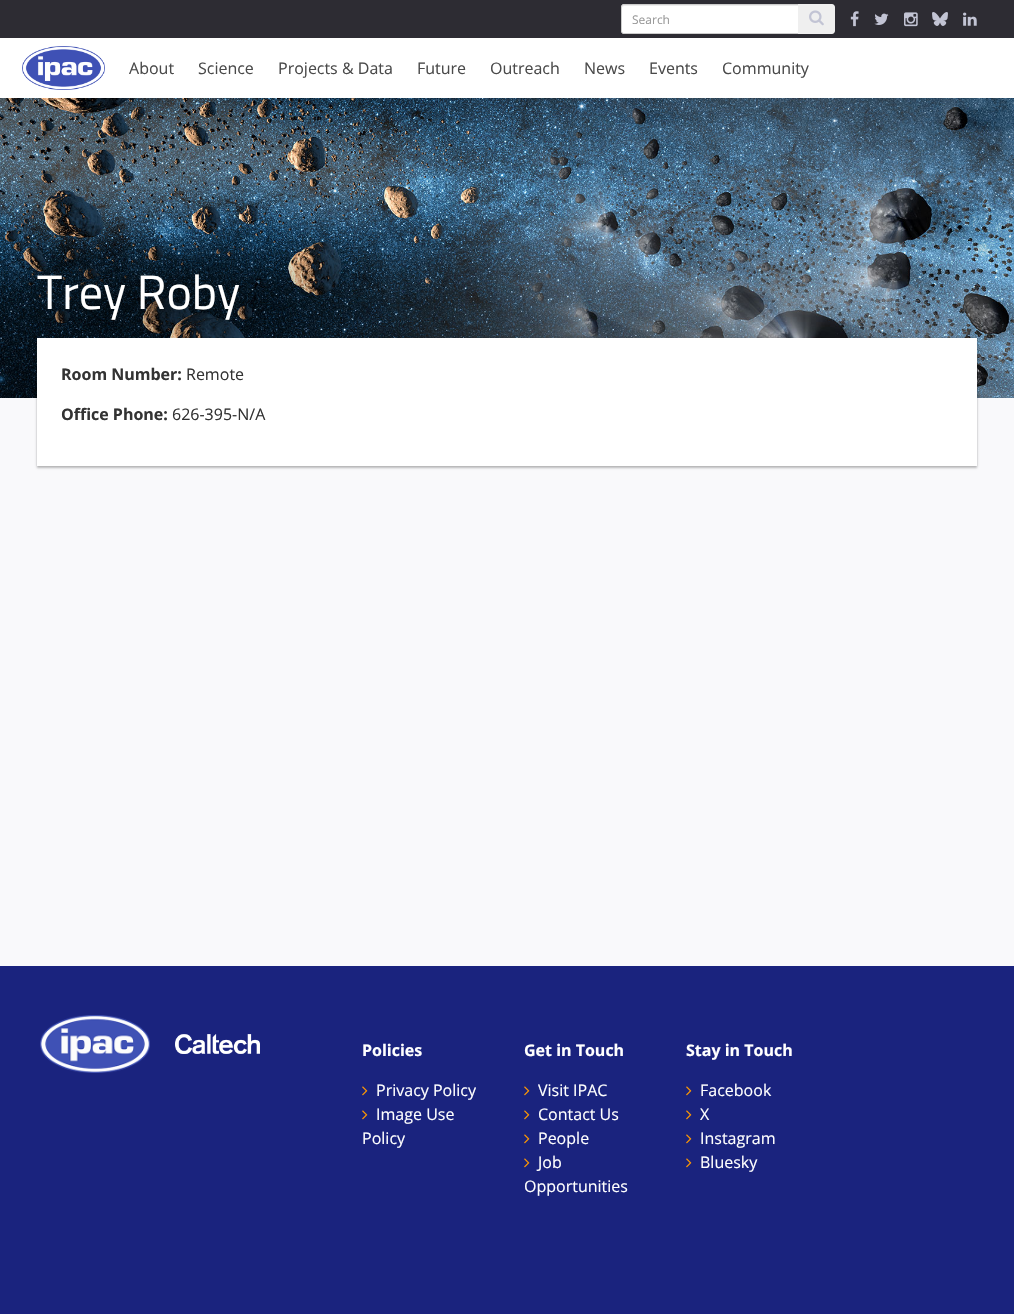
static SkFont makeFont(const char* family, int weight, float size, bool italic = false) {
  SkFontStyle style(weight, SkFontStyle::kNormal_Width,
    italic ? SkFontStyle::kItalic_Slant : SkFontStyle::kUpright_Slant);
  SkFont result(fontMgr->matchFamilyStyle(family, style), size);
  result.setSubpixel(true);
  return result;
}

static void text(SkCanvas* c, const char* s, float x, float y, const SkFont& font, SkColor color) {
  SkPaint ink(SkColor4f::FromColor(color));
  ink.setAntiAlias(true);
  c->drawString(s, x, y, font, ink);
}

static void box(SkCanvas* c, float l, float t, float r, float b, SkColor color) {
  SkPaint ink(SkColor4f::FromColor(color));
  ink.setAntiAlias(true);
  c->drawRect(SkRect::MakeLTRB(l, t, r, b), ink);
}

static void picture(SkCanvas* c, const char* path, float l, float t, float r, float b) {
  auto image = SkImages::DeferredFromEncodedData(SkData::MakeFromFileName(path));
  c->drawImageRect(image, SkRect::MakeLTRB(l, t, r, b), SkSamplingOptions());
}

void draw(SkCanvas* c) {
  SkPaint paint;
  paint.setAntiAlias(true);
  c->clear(0xfff9f9fb);
  box(c, 0, 0, 1014, 38, 0xff2d2c33);
  paint.setColor(0xffffffff);
  c->drawPath(SkPathBuilder().moveTo(624, 4).lineTo(799, 4).lineTo(799, 34).lineTo(624, 34).cubicTo(622.5f, 34, 621, 32.5f, 621, 31).lineTo(621, 7).cubicTo(621, 5.5f, 622.5f, 4, 624, 4).close().detach(), paint);
  paint.setColor(0xffececec);
  c->drawPath(SkPathBuilder().moveTo(624, 6).lineTo(798, 6).lineTo(798, 5).lineTo(623, 5).cubicTo(622, 6, 622, 7, 622, 8).cubicTo(622, 7, 623, 6, 624, 6).close().detach(), paint);
  paint.setStyle(SkPaint::kStroke_Style);
  paint.setStrokeWidth(1);
  paint.setColor(0xffcccccc);
  c->drawPath(SkPathBuilder().moveTo(624, 4.5f).lineTo(798.5f, 4.5f).lineTo(798.5f, 33.5f).lineTo(624, 33.5f).cubicTo(622.5f, 33.5f, 621.5f, 32.5f, 621.5f, 31).lineTo(621.5f, 7).cubicTo(621.5f, 5.5f, 622.5f, 4.5f, 624, 4.5f).close().detach(), paint);
  SkFont face1 = makeFont("Open Sans", 400, 12);
  text(c, "Search", 632, 24, face1, 0xff999999);
  paint.setStyle(SkPaint::kFill_Style);
  paint.setColor(0xffefefef);
  c->drawPath(SkPathBuilder().moveTo(798, 4).lineTo(832, 4).cubicTo(833.5f, 4, 835, 5.5f, 835, 7).lineTo(835, 31).cubicTo(835, 32.5f, 833.5f, 34, 832, 34).lineTo(798, 34).close().detach(), paint);
  picture(c, "img_01.png", 809, 10, 824, 26);
  picture(c, "img_02.png", 850, 11, 859, 27);
  picture(c, "img_03.png", 874, 13, 889, 25);
  picture(c, "img_04.png", 904, 12, 918, 27);
  picture(c, "img_05.png", 932, 12, 948, 26);
  picture(c, "img_06.png", 963, 12, 977, 26);
  box(c, 0, 38, 1014, 98, 0xffffffff);
  picture(c, "img_07.png", 22, 46, 105, 90);
  SkFont face2 = makeFont("Open Sans", 400, 16);
  text(c, "About", 129, 74, face2, 0xff4a4a4a);
  text(c, "Science", 198, 74, face2, 0xff4a4a4a);
  text(c, "Projects & Data", 278, 74, face2, 0xff4a4a4a);
  text(c, "Future", 417, 74, face2, 0xff4a4a4a);
  text(c, "Outreach", 490, 74, face2, 0xff4a4a4a);
  text(c, "News", 584, 74, face2, 0xff4a4a4a);
  text(c, "Events", 649, 74, face2, 0xff4a4a4a);
  text(c, "Community", 722, 74, face2, 0xff4a4a4a);
  picture(c, "img_08.png", 0, 98, 1014, 398);
  SkFont face3 = makeFont("Titillium Web", 400, 48);
  text(c, "Trey Roby", 37, 309, face3, 0xffffffff);
  paint.setColor(0x1f000000);
  paint.setMaskFilter(SkMaskFilter::MakeBlur(kNormal_SkBlurStyle, 1));
  c->drawRect(SkRect::MakeLTRB(37, 338, 977, 466), paint);
  paint.setMaskFilter(nullptr);
  paint.setColor(0x3d000000);
  paint.setMaskFilter(SkMaskFilter::MakeBlur(kNormal_SkBlurStyle, 1));
  c->drawRect(SkRect::MakeLTRB(37, 340, 977, 468), paint);
  paint.setMaskFilter(nullptr);
  box(c, 37, 338, 977, 466, 0xffffffff);
  SkFont face4 = makeFont("Open Sans", 700, 16);
  text(c, "Room Number:", 61, 380, face4, 0xff333333);
  text(c, "Remote", 186, 380, face2, 0xff333333);
  text(c, "Office Phone:", 61, 420, face4, 0xff333333);
  text(c, "626-395-N/A", 172, 420, face2, 0xff333333);
  box(c, 0, 966, 1014, 1314, 0xff1a237e);
  picture(c, "img_09.png", 40, 1015, 150, 1073);
  picture(c, "img_10.png", 175, 1034, 260, 1054);
  text(c, "Policies", 362, 1056, face4, 0xffffffff);
  picture(c, "img_11.png", 362, 1086, 368, 1096);
  text(c, "Privacy Policy", 376, 1096, face2, 0xffffffff);
  picture(c, "img_11.png", 362, 1110, 368, 1120);
  text(c, "Image Use", 376, 1120, face2, 0xffffffff);
  text(c, "Policy", 362, 1144, face2, 0xffffffff);
  text(c, "Get in Touch", 524, 1056, face4, 0xffffffff);
  picture(c, "img_11.png", 524, 1086, 530, 1096);
  text(c, "Visit IPAC", 538, 1096, face2, 0xffffffff);
  picture(c, "img_11.png", 524, 1110, 530, 1120);
  text(c, "Contact Us", 538, 1120, face2, 0xffffffff);
  picture(c, "img_11.png", 524, 1134, 530, 1144);
  text(c, "People", 538, 1144, face2, 0xffffffff);
  picture(c, "img_11.png", 524, 1158, 530, 1168);
  text(c, "Job", 538, 1168, face2, 0xffffffff);
  text(c, "Opportunities", 524, 1192, face2, 0xffffffff);
  text(c, "Stay in Touch", 686, 1056, face4, 0xffffffff);
  picture(c, "img_11.png", 686, 1086, 692, 1096);
  text(c, "Facebook", 700, 1096, face2, 0xffffffff);
  picture(c, "img_11.png", 686, 1110, 692, 1120);
  text(c, "X", 700, 1120, face2, 0xffffffff);
  picture(c, "img_11.png", 686, 1134, 692, 1144);
  text(c, "Instagram", 700, 1144, face2, 0xffffffff);
  picture(c, "img_11.png", 686, 1158, 692, 1168);
  text(c, "Bluesky", 700, 1168, face2, 0xffffffff);
}
